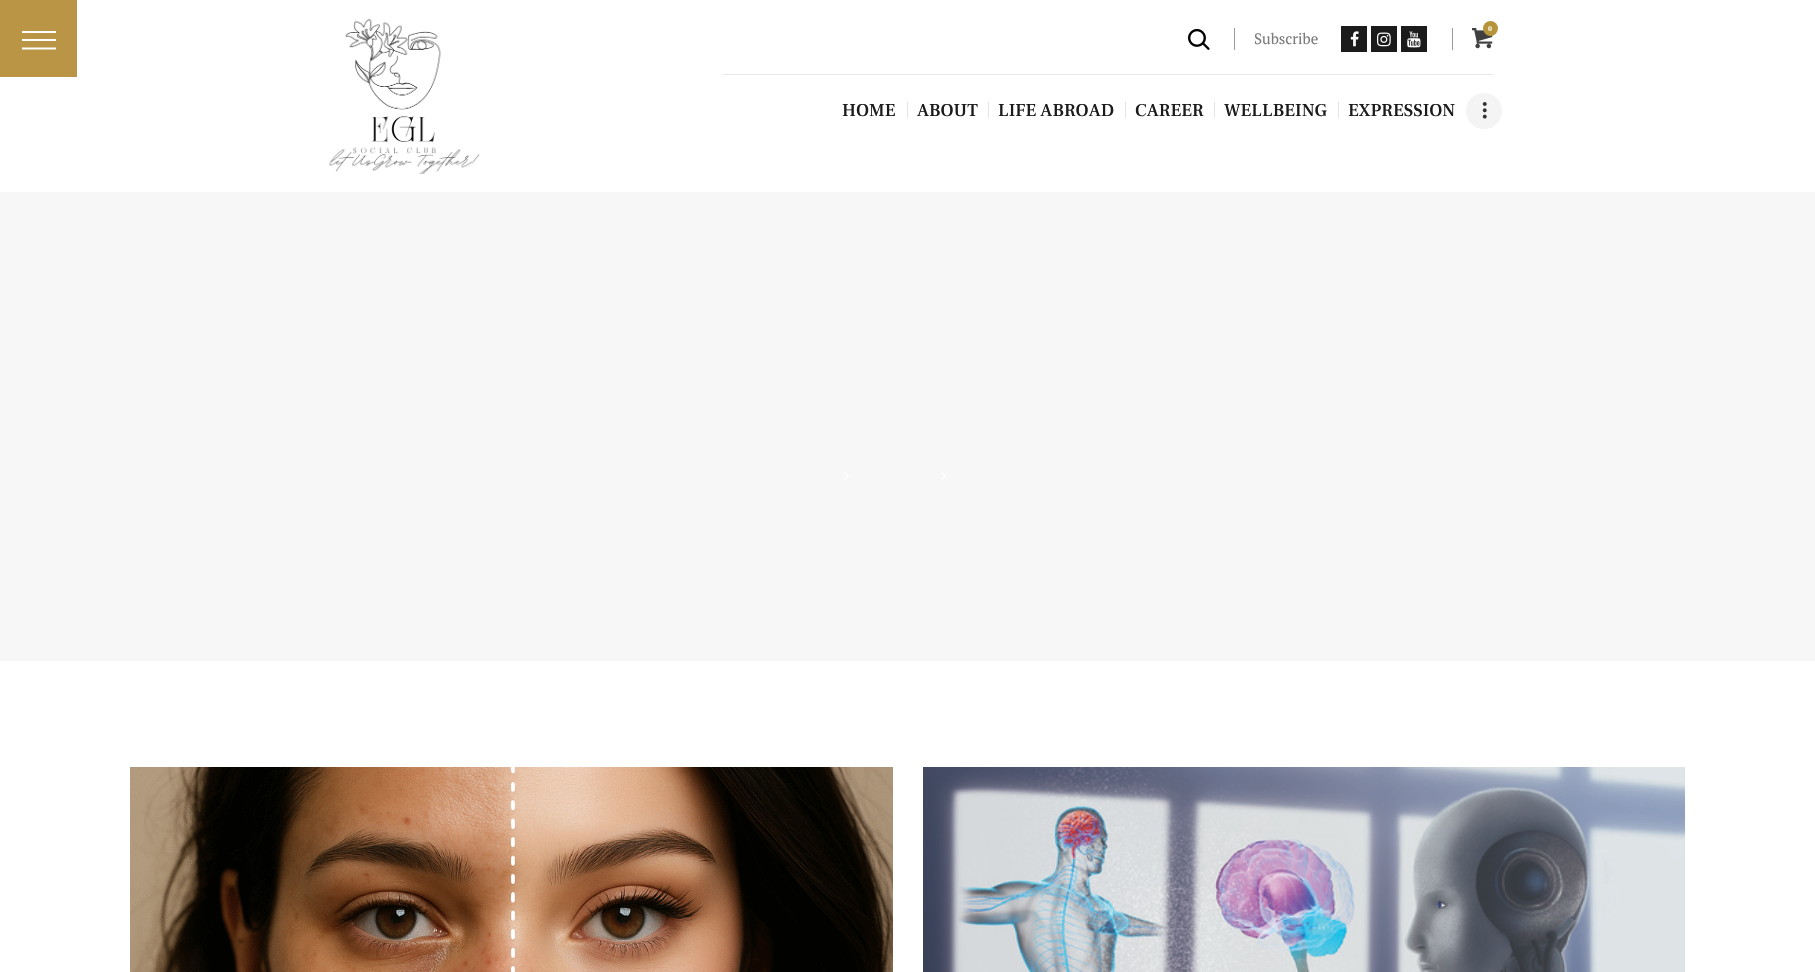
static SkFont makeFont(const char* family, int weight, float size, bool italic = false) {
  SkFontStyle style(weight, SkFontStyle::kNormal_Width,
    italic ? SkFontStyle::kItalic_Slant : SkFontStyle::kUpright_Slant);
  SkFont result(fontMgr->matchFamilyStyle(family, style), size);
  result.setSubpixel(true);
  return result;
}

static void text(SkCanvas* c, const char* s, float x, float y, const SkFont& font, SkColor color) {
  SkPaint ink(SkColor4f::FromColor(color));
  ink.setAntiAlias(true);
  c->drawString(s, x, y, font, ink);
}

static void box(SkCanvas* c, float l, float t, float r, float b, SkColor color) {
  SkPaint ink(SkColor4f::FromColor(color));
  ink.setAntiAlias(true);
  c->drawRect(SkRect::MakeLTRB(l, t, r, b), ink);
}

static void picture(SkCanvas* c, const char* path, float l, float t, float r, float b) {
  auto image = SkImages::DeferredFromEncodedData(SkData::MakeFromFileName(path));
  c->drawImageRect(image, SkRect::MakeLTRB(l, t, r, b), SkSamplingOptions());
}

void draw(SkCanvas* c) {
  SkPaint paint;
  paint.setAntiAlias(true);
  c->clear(0xffffffff);
  box(c, 0, 0, 77, 77, 0xffba9545);
  paint.setColor(0xffffffff);
  c->drawPath(SkPathBuilder().moveTo(56, 31).lineTo(56, 33).lineTo(22, 33).lineTo(22, 31).close().moveTo(22, 41).lineTo(56, 41).lineTo(56, 39).lineTo(22, 39).close().moveTo(22, 49.5f).lineTo(56, 49.5f).lineTo(56, 47.5f).lineTo(22, 47.5f).close().detach(), paint);
  picture(c, "img_01.png", 329, 18, 480, 174);
  picture(c, "img_02.png", 1188, 28, 1210, 50);
  box(c, 1234, 28, 1235, 50, 0xff9b9b9b);
  SkFont face1 = makeFont("PT Serif", 400, 15);
  text(c, "Subscribe", 1254, 44, face1, 0xff7a7a7a);
  box(c, 1341, 26, 1367, 52, 0xff1b1b1b);
  picture(c, "img_03.png", 1350, 31, 1359, 47);
  box(c, 1371, 26, 1397, 52, 0xff1b1b1b);
  picture(c, "img_04.png", 1377, 32, 1391, 47);
  box(c, 1401, 26, 1427, 52, 0xff1b1b1b);
  picture(c, "img_05.png", 1407, 31, 1421, 48);
  box(c, 1452, 28, 1453, 50, 0xff9b9b9b);
  picture(c, "img_06.png", 1472, 28, 1493, 49);
  paint.setColor(0xffb6953a);
  c->drawCircle(1490.5f, 28.5f, 7.5f, paint);
  SkFont face2 = makeFont("Frank Ruhl Libre", 500, 7);
  text(c, "0", 1488, 31, face2, 0xffffffff);
  box(c, 723, 74, 1493, 75, 0xffe8e8e8);
  SkFont face3 = makeFont("Frank Ruhl Libre", 500, 18);
  text(c, "HOME", 842, 116, face3, 0xff1b1b1b);
  box(c, 907, 102, 908, 118, 0xffe5e5e5);
  text(c, "ABOUT", 917, 116, face3, 0xff1b1b1b);
  box(c, 988, 102, 989, 118, 0xffe5e5e5);
  text(c, "LIFE ABROAD", 998, 116, face3, 0xff1b1b1b);
  box(c, 1125, 102, 1126, 118, 0xffe5e5e5);
  text(c, "CAREER", 1135, 116, face3, 0xff1b1b1b);
  box(c, 1214, 102, 1215, 118, 0xffe5e5e5);
  text(c, "WELLBEING", 1224, 116, face3, 0xff1b1b1b);
  box(c, 1338, 102, 1339, 118, 0xffe5e5e5);
  text(c, "EXPRESSION", 1348, 116, face3, 0xff1b1b1b);
  paint.setColor(0xfff4f4f4);
  c->drawCircle(1484, 111, 18, paint);
  picture(c, "img_07.png", 1482, 102, 1487, 119);
  box(c, 0, 192, 1815, 661, 0xfff7f7f7);
  picture(c, "img_08.png", 844, 472, 849, 480);
  picture(c, "img_08.png", 941, 472, 946, 480);
  picture(c, "img_09.png", 130, 767, 893, 972);
  picture(c, "img_10.png", 923, 767, 1685, 972);
}
